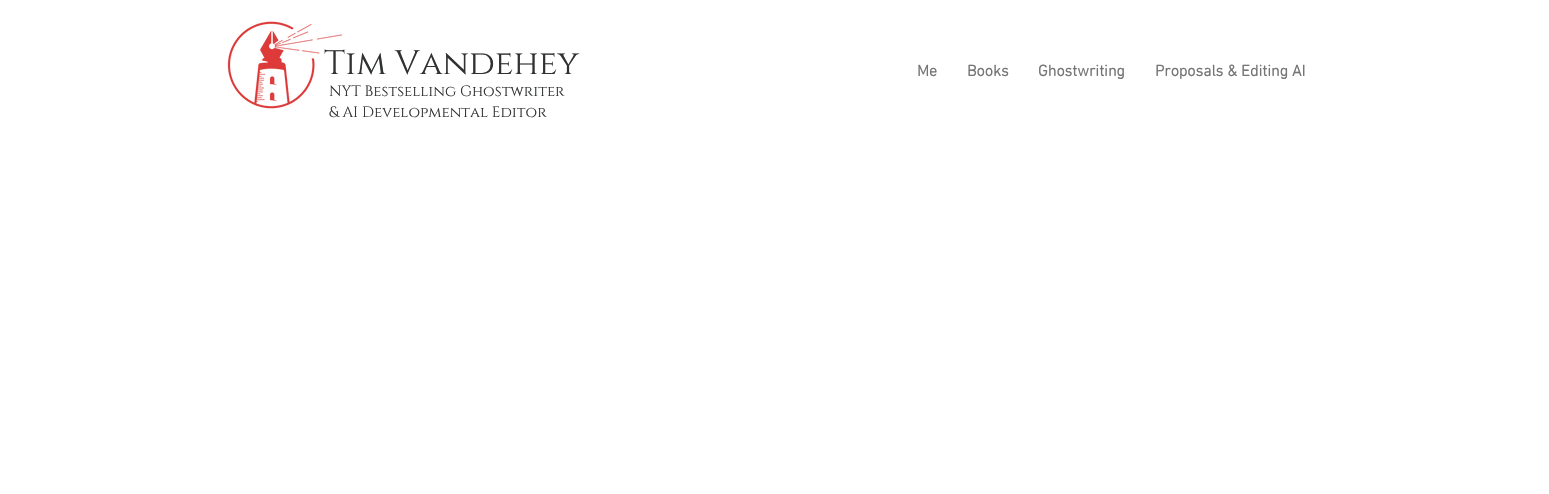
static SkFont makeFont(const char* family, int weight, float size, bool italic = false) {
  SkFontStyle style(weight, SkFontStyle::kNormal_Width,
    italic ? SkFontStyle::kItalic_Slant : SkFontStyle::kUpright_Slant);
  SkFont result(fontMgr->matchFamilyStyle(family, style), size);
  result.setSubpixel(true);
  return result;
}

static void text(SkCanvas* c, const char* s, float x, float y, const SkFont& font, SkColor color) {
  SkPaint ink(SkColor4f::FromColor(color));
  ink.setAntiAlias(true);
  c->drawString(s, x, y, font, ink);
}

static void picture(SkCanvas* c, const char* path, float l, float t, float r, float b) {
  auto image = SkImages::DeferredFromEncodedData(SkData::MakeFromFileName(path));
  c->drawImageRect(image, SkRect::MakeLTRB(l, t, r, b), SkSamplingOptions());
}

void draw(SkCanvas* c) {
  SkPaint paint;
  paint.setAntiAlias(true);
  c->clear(0xffffffff);
  picture(c, "img_01.png", 227, 21, 343, 109);
  SkFont face1 = makeFont("Cinzel", 400, 34);
  text(c, "Tim Vandehey", 324, 74, face1, 0xff303131);
  SkFont face2 = makeFont("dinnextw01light", 700, 16);
  text(c, "Me", 917, 76, face2, 0xff757575);
  text(c, "Books", 967, 76, face2, 0xff757575);
  text(c, "Ghostwriting", 1038, 76, face2, 0xff757575);
  text(c, "Proposals & Editing AI", 1155, 76, face2, 0xff757575);
  SkFont face3 = makeFont("Cinzel", 400, 15);
  text(c, "NYT Bestselling Ghostwriter", 329, 96, face3, 0xff303131);
  text(c, "& AI Developmental Editor", 329, 117, face3, 0xff303131);
}
